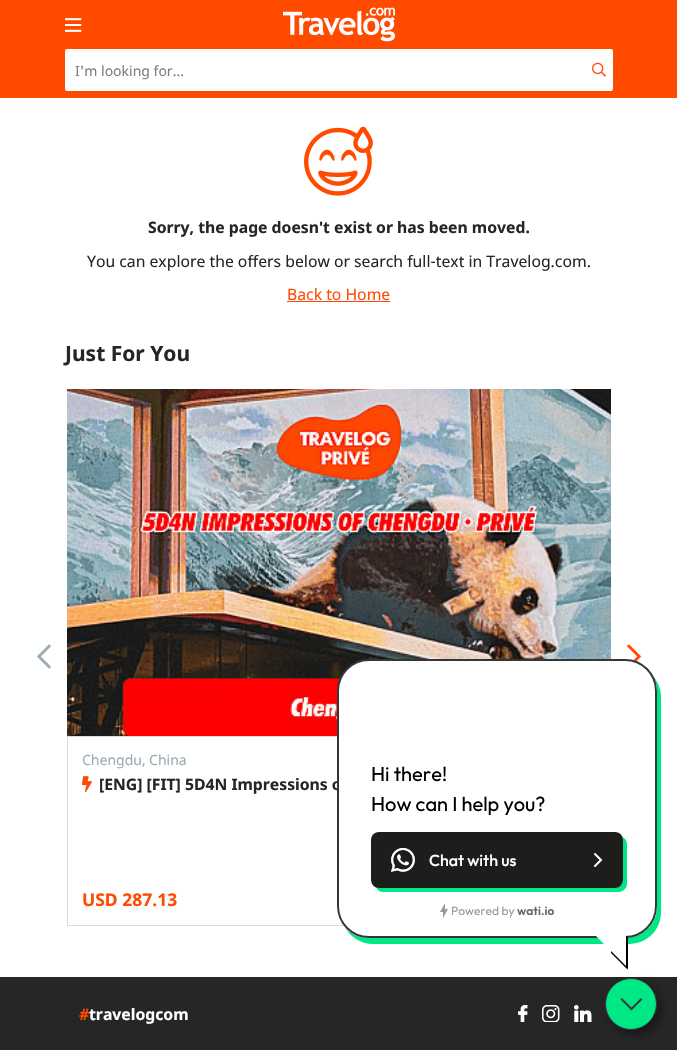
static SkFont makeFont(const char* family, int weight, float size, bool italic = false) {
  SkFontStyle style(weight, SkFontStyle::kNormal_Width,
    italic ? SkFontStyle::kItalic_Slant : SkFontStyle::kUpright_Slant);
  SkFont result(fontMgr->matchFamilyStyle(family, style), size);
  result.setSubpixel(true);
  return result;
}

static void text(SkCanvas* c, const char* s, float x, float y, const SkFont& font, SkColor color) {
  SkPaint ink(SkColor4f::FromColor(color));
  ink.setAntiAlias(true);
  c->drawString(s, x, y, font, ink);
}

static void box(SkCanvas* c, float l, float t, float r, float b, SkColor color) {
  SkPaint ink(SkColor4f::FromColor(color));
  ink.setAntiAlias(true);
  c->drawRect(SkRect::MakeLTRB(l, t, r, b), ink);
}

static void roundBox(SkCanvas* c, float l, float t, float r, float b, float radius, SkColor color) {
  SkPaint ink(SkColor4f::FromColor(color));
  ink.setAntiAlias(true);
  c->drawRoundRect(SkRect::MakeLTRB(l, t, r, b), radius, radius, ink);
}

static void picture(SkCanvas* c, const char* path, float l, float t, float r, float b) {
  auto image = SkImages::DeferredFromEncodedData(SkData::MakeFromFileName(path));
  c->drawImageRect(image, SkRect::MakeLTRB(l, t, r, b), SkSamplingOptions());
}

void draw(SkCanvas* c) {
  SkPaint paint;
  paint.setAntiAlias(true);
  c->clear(0xff262626);
  box(c, 0, 0, 677, 98, 0xffff4a00);
  picture(c, "img_01.png", 65, 18, 82, 32);
  picture(c, "img_02.png", 283, 7, 395, 42);
  roundBox(c, 65, 49, 613, 91, 2, 0xffffffff);
  SkFont face1 = makeFont("Noto Sans", 400, 14);
  text(c, "I'm looking for...", 75, 76, face1, 0xff808080);
  picture(c, "img_03.png", 592, 62, 606, 77);
  box(c, 0, 98, 677, 977, 0xffffffff);
  picture(c, "img_04.png", 304, 126, 373, 196);
  SkFont face2 = makeFont("Noto Sans", 700, 15.75f);
  text(c, "Sorry, the page doesn't exist or has been moved.", 148, 233, face2, 0xff262626);
  SkFont face3 = makeFont("Noto Sans", 400, 15.75f);
  text(c, "You can explore the offers below or search full-text in Travelog.com.", 87, 267, face3, 0xff262626);
  text(c, "Back to Home", 287, 300, face3, 0xffff4a00);
  box(c, 287, 301, 390, 302, 0xffff4a00);
  SkFont face4 = makeFont("Noto Sans", 700, 21);
  text(c, "Just For You", 65, 361, face4, 0xff262626);
  picture(c, "img_05.png", 37, 644, 51, 669);
  picture(c, "img_06.png", 627, 644, 641, 662);
  picture(c, "img_07.png", 67, 389, 611, 736);
  paint.setStyle(SkPaint::kStroke_Style);
  paint.setStrokeWidth(1);
  paint.setColor(0xffdbdbdd);
  c->drawRect(SkRect::MakeLTRB(67.5f, 736.5f, 610.5f, 925.5f), paint);
  text(c, "Chengdu, China", 82, 765, face1, 0xff9babb4);
  picture(c, "img_08.png", 82, 776, 92, 792);
  text(c, "[ENG] [FIT] 5D4N Impressions o", 99, 790, face2, 0xff262626);
  SkFont face5 = makeFont("Noto Sans", 700, 17.5f);
  text(c, "USD 287.13", 82, 906, face5, 0xffff4a00);
  SkFont face6 = makeFont("Noto Sans", 700, 15.75f, true);
  text(c, "#", 79, 1020, face6, 0xffff4a00);
  text(c, "travelogcom", 89, 1020, face2, 0xffffffff);
  picture(c, "img_09.png", 518, 1005, 528, 1022);
  picture(c, "img_10.png", 542, 1005, 560, 1022);
  picture(c, "img_11.png", 574, 1005, 592, 1022);
  paint.setStyle(SkPaint::kFill_Style);
  paint.setColor(0xff00e785);
  c->drawPath(SkPathBuilder().moveTo(345, 927).cubicTo(350, 937, 361, 944, 373, 944).lineTo(629, 944).cubicTo(647, 944, 661, 930, 661, 912).lineTo(661, 697).cubicTo(661, 689, 658, 682, 653, 676).cubicTo(656, 681, 657, 686, 657, 691).lineTo(657, 906).cubicTo(657, 924, 643, 938, 625, 938).lineTo(369, 938).cubicTo(359, 938, 350, 934, 345, 927).close().detach(), paint);
  paint.setColor(0xffffffff);
  c->drawRoundRect(SkRect::MakeLTRB(338, 660, 656, 937), 31, 31, paint);
  paint.setStyle(SkPaint::kStroke_Style);
  paint.setStrokeWidth(2);
  paint.setColor(0xff363636);
  c->drawRoundRect(SkRect::MakeLTRB(338, 660, 656, 937), 31, 31, paint);
  SkFont face7 = makeFont("Outfit", 400, 20);
  text(c, "Hi there!", 371, 781, face7, 0xff000000);
  text(c, "How can I help you?", 371, 811, face7, 0xff000000);
  paint.setStyle(SkPaint::kFill_Style);
  paint.setColor(0xff00e785);
  c->drawPath(SkPathBuilder().moveTo(376, 887).cubicTo(377, 890, 380, 892, 383, 892).lineTo(619, 892).cubicTo(623, 892, 627, 888, 627, 884).lineTo(627, 844).cubicTo(627, 841, 625, 838, 622, 837).lineTo(623, 840).lineTo(623, 880).cubicTo(623, 884, 619, 888, 615, 888).lineTo(379, 888).close().detach(), paint);
  roundBox(c, 371, 832, 623, 888, 8, 0xff1d1d1b);
  picture(c, "img_12.png", 391, 848, 415, 872);
  SkFont face8 = makeFont("Outfit", 500, 16);
  text(c, "Chat with us", 429, 866, face8, 0xffffffff);
  paint.setStyle(SkPaint::kStroke_Style);
  paint.setStrokeCap(SkPaint::kRound_Cap);
  paint.setColor(0xffffffff);
  c->drawPath(SkPathBuilder().moveTo(595, 854).lineTo(601, 860).lineTo(595, 866).detach(), paint);
  picture(c, "img_13.png", 440, 903, 448, 918);
  SkFont face9 = makeFont("Outfit", 400, 12);
  text(c, "Powered by", 451, 915, face9, 0xff999999);
  SkFont face10 = makeFont("Outfit", 600, 12);
  text(c, "wati.io", 517, 915, face10, 0xff666666);
  paint.setStyle(SkPaint::kFill_Style);
  paint.setColor(0x66000000);
  paint.setMaskFilter(SkMaskFilter::MakeBlur(kNormal_SkBlurStyle, 5));
  c->drawRoundRect(SkRect::MakeLTRB(609, 983, 661, 1035), 26, 26, paint);
  paint.setMaskFilter(nullptr);
  paint.setColor(0xff000000);
  c->drawPath(SkPathBuilder().moveTo(628, 968).lineTo(628, 938).cubicTo(628, 937, 627, 936, 626, 936).lineTo(611, 936).lineTo(611, 953).lineTo(627.5f, 969.5f).close().detach(), paint);
  paint.setColor(0xffffffff);
  c->drawPath(SkPathBuilder().moveTo(626, 936).lineTo(626, 966).lineTo(596, 936).close().detach(), paint);
  paint.setColor(0xff00e785);
  c->drawCircle(631, 1004, 25.5f, paint);
  paint.setStyle(SkPaint::kStroke_Style);
  paint.setStrokeWidth(1);
  paint.setStrokeCap(SkPaint::kButt_Cap);
  paint.setColor(0xff363636);
  c->drawCircle(631, 1004, 25.5f, paint);
  paint.setStrokeWidth(2);
  paint.setStrokeCap(SkPaint::kSquare_Cap);
  c->drawPath(SkPathBuilder().moveTo(622, 999.5f).lineTo(631.5f, 1009).lineTo(641, 999.5f).detach(), paint);
}
